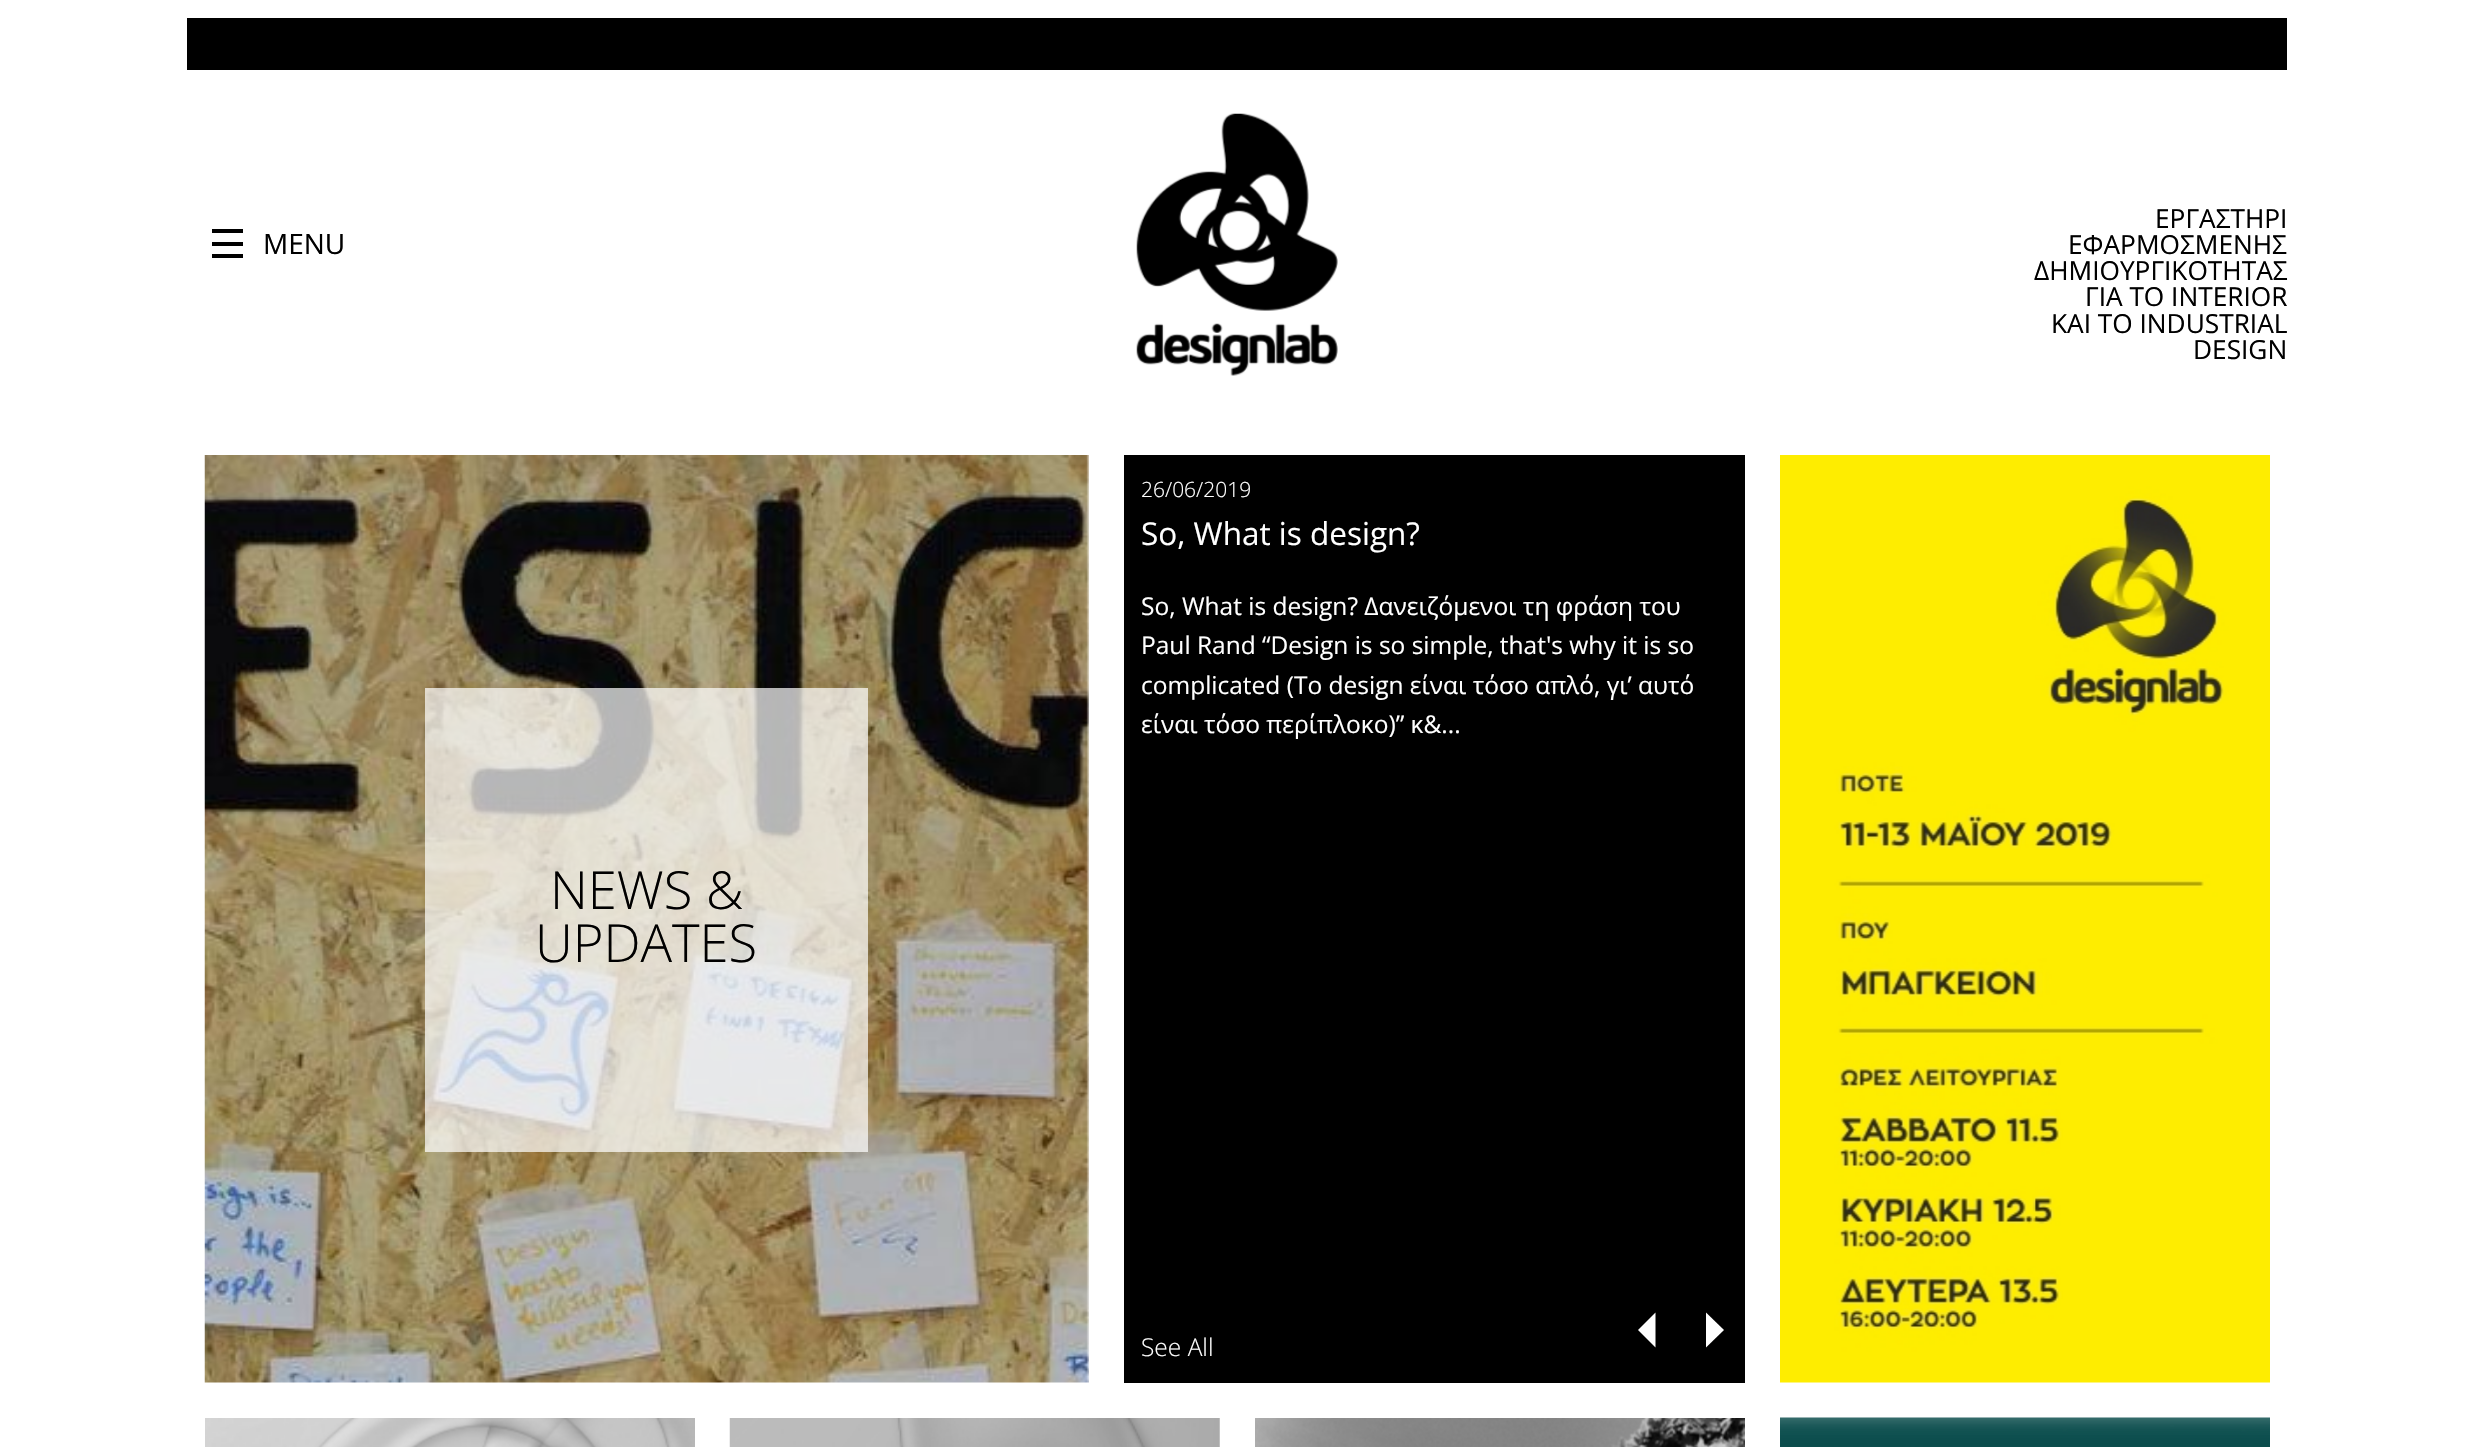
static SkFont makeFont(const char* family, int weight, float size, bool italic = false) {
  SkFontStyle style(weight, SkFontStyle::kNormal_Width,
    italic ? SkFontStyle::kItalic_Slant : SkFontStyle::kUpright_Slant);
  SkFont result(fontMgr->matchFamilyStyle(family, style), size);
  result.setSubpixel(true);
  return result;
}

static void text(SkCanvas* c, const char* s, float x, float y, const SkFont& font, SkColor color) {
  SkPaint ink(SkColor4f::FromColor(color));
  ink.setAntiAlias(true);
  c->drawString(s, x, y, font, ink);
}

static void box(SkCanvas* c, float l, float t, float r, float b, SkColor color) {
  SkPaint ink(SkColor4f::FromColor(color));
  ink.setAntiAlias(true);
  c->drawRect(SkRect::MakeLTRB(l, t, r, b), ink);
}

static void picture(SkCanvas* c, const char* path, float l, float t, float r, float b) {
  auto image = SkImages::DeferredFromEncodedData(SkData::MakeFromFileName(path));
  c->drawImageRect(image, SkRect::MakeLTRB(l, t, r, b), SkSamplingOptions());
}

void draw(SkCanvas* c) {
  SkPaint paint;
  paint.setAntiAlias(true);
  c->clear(0xffffffff);
  box(c, 187, 18, 2287, 70, 0xff000000);
  box(c, 212, 254, 243, 258, 0xff000000);
  box(c, 212, 242, 243, 246, 0xff000000);
  box(c, 212, 229, 243, 233, 0xff000000);
  SkFont face1 = makeFont("Open Sans", 400, 28);
  text(c, "MENU", 263, 254, face1, 0xff000000);
  picture(c, "img_01.png", 1136, 113, 1338, 376);
  SkFont face2 = makeFont("Open Sans", 400, 26.25f);
  text(c, "ΕΡΓΑΣΤΗΡΙ", 2155, 228, face2, 0xff000000);
  text(c, "ΕΦΑΡΜΟΣΜΕΝΗΣ", 2068, 254, face2, 0xff000000);
  text(c, "ΔΗΜΙΟΥΡΓΙΚΟΤΗΤΑΣ", 2034, 280, face2, 0xff000000);
  text(c, "ΓΙΑ ΤΟ INTERIOR", 2085, 306, face2, 0xff000000);
  text(c, "ΚΑΙ ΤΟ INDUSTRIAL", 2051, 333, face2, 0xff000000);
  text(c, "DESIGN", 2193, 359, face2, 0xff000000);
  picture(c, "img_02.png", 204, 455, 1089, 1383);
  box(c, 425, 688, 868, 1152, 0xb3ffffff);
  SkFont face3 = makeFont("Open Sans", 300, 52.5f);
  text(c, "NEWS &", 550, 909, face3, 0xff000000);
  text(c, "UPDATES", 535, 962, face3, 0xff000000);
  box(c, 1124, 455, 1745, 1383, 0xff000000);
  SkFont face4 = makeFont("Open Sans", 300, 21);
  text(c, "26/06/2019", 1141, 497, face4, 0xffffffff);
  SkFont face5 = makeFont("Open Sans", 400, 31.5f);
  text(c, "So, What is design?", 1141, 545, face5, 0xffffffff);
  SkFont face6 = makeFont("Open Sans", 400, 24.5f);
  text(c, "So, What is design? Δανειζόμενοι τη φράση του", 1141, 615, face6, 0xffffffff);
  text(c, "Paul Rand “Design is so simple, that's why it is so", 1141, 654, face6, 0xffffffff);
  text(c, "complicated (Το design είναι τόσο απλό, γι’ αυτό", 1141, 694, face6, 0xffffffff);
  text(c, "είναι τόσο περίπλοκο)” κ&...", 1141, 733, face6, 0xffffffff);
  paint.setColor(0xffffffff);
  c->drawPath(SkPathBuilder().moveTo(1655.5f, 1312.5f).lineTo(1655.5f, 1347.5f).lineTo(1638, 1330).close().detach(), paint);
  c->drawPath(SkPathBuilder().moveTo(1706, 1347.5f).lineTo(1706, 1312.5f).lineTo(1724, 1330).close().detach(), paint);
  SkFont face7 = makeFont("Open Sans", 300, 24.5f);
  text(c, "See All", 1141, 1356, face7, 0xffffffff);
  picture(c, "img_03.png", 205, 1418, 695, 1447);
  picture(c, "img_04.png", 729, 1418, 1220, 1447);
  picture(c, "img_05.png", 1255, 1418, 1745, 1447);
  picture(c, "img_06.png", 1780, 455, 2270, 1383);
  picture(c, "img_07.png", 1780, 1417, 2270, 1447);
}
